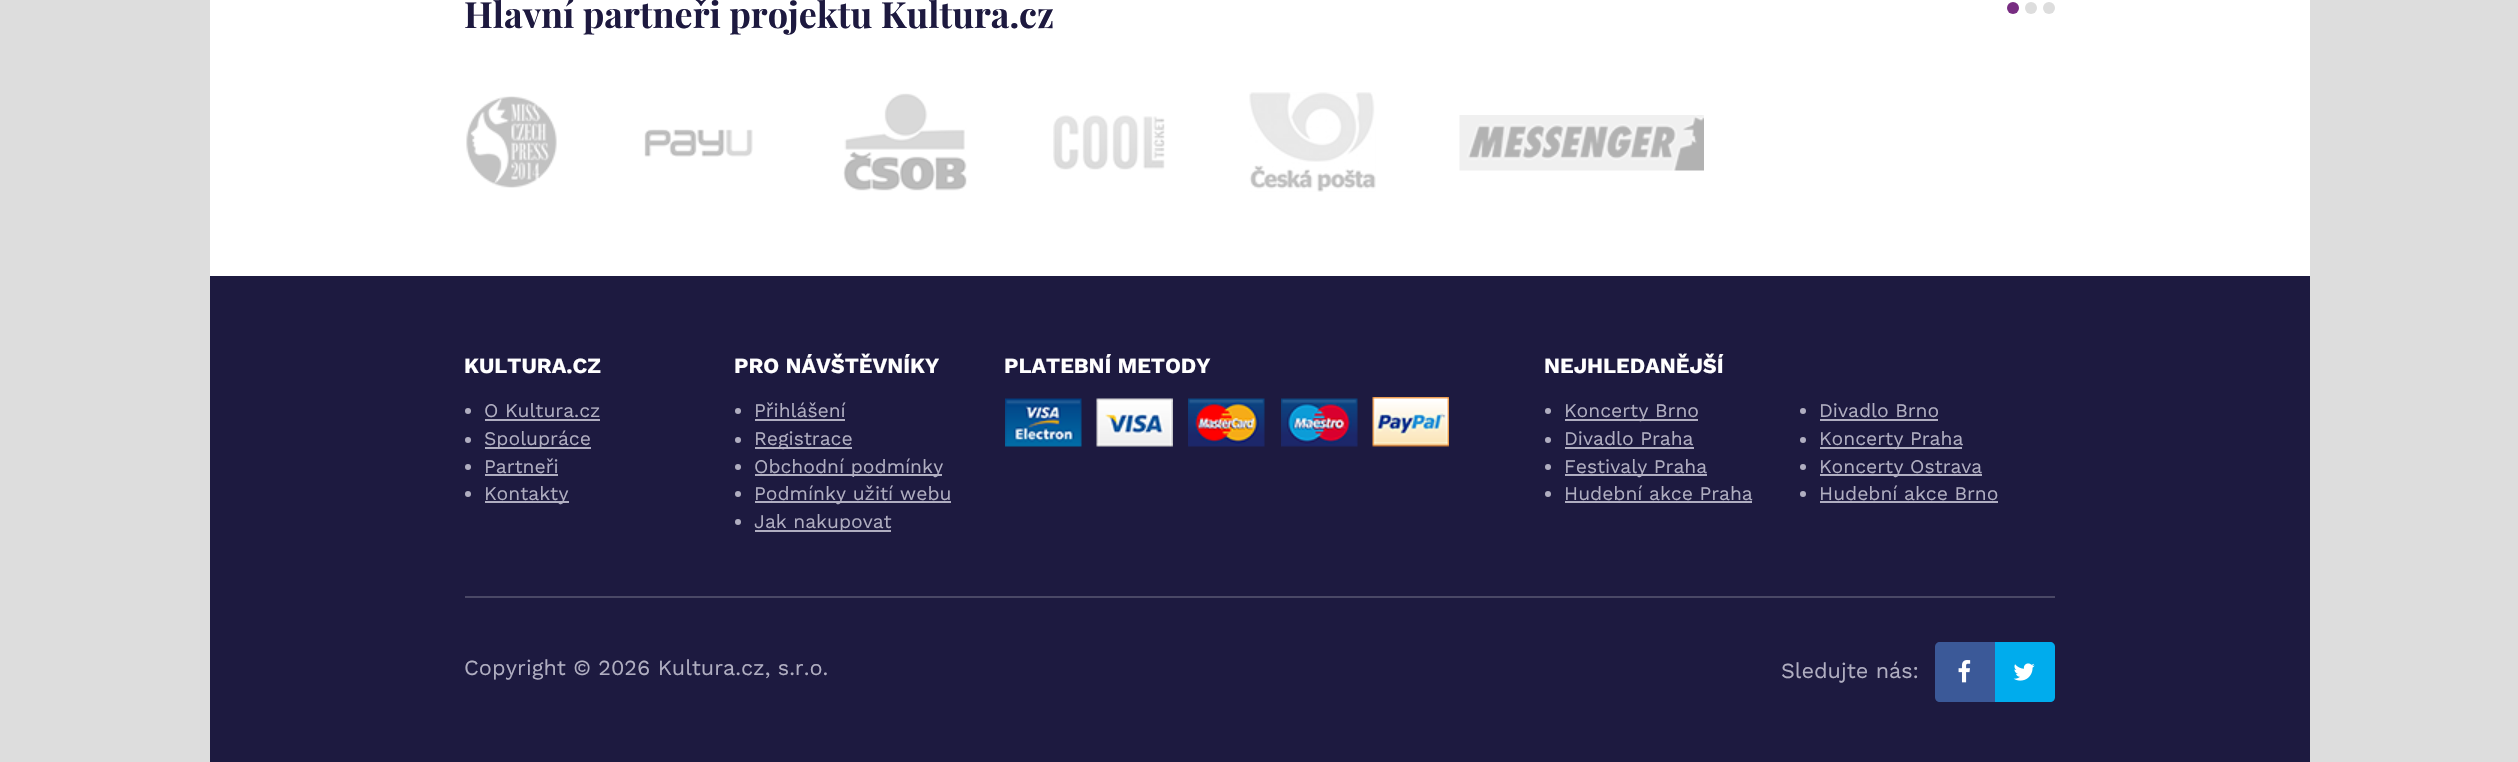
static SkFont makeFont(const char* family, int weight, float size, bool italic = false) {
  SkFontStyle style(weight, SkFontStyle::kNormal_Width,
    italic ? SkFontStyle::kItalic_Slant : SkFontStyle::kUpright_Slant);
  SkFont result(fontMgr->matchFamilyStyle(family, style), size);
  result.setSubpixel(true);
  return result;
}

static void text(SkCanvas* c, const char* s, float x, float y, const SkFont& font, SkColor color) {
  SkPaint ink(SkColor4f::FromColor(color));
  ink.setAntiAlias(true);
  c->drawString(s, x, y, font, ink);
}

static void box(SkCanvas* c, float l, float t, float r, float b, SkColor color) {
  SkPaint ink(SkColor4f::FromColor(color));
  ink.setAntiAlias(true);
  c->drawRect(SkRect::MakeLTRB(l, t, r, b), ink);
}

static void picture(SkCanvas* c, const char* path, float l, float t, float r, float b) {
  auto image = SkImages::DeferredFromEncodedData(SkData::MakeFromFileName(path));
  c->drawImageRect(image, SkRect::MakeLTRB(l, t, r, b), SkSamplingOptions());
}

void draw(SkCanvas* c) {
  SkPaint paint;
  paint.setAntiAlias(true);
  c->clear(0xffdddddd);
  box(c, 210, 0, 2310, 276, 0xffffffff);
  SkFont face1 = makeFont("Playfair Display", 700, 36);
  text(c, "Hlavní partneři projektu Kultura.cz", 464, 28, face1, 0xff1d193f);
  picture(c, "img_01.png", 466, 96, 557, 188);
  picture(c, "img_02.png", 644, 129, 753, 157);
  picture(c, "img_03.png", 843, 93, 967, 191);
  picture(c, "img_04.png", 1053, 115, 1165, 170);
  picture(c, "img_05.png", 1249, 92, 1376, 192);
  picture(c, "img_06.png", 1459, 115, 1704, 171);
  paint.setColor(0xff782d82);
  c->drawCircle(2013, 8, 6, paint);
  paint.setColor(0xffdddddd);
  c->drawCircle(2031, 8, 6, paint);
  c->drawCircle(2049, 8, 6, paint);
  box(c, 210, 276, 2310, 762, 0xff1d1a40);
  SkFont face2 = makeFont("Work Sans", 700, 21.6f);
  text(c, "KULTURA.CZ", 464, 373, face2, 0xffffffff);
  paint.setColor(0xffb0aec1);
  c->drawCircle(468, 411, 3, paint);
  SkFont face3 = makeFont("Work Sans", 400, 19.25f);
  text(c, "O Kultura.cz", 484, 417, face3, 0xffb0aec1);
  box(c, 485, 419, 600, 421, 0xffb0aec1);
  c->drawCircle(468, 440, 3, paint);
  box(c, 485, 447, 591, 449, 0xffb0aec1);
  text(c, "Spolupráce", 484, 445, face3, 0xffb0aec1);
  c->drawCircle(468, 467, 3, paint);
  text(c, "Partneři", 484, 473, face3, 0xffb0aec1);
  box(c, 485, 474, 558, 476, 0xffb0aec1);
  c->drawCircle(468, 494, 3, paint);
  box(c, 485, 501, 569, 503, 0xffb0aec1);
  text(c, "Kontakty", 484, 500, face3, 0xffb0aec1);
  text(c, "PRO NÁVŠTĚVNÍKY", 734, 373, face2, 0xffffffff);
  c->drawCircle(738, 411, 3, paint);
  text(c, "Přihlášení", 754, 417, face3, 0xffb0aec1);
  box(c, 755, 419, 845, 421, 0xffb0aec1);
  c->drawCircle(738, 440, 3, paint);
  box(c, 755, 447, 852, 449, 0xffb0aec1);
  text(c, "Registrace", 754, 445, face3, 0xffb0aec1);
  c->drawCircle(738, 467, 3, paint);
  box(c, 755, 474, 942, 476, 0xffb0aec1);
  text(c, "Obchodní podmínky", 754, 473, face3, 0xffb0aec1);
  c->drawCircle(738, 494, 3, paint);
  box(c, 755, 501, 951, 503, 0xffb0aec1);
  text(c, "Podmínky užití webu", 754, 500, face3, 0xffb0aec1);
  c->drawCircle(738, 522, 3, paint);
  box(c, 755, 530, 891, 532, 0xffb0aec1);
  text(c, "Jak nakupovat", 754, 528, face3, 0xffb0aec1);
  text(c, "PLATEBNÍ METODY", 1004, 373, face2, 0xffffffff);
  picture(c, "img_07.png", 1005, 398, 1082, 447);
  picture(c, "img_08.png", 1096, 398, 1173, 447);
  picture(c, "img_09.png", 1188, 398, 1265, 447);
  picture(c, "img_10.png", 1281, 398, 1358, 447);
  picture(c, "img_11.png", 1372, 397, 1449, 447);
  text(c, "NEJHLEDANĚJŠÍ", 1544, 373, face2, 0xffffffff);
  c->drawCircle(1548, 411, 3, paint);
  box(c, 1565, 419, 1698, 421, 0xffb0aec1);
  text(c, "Koncerty Brno", 1564, 417, face3, 0xffb0aec1);
  c->drawCircle(1803, 411, 3, paint);
  text(c, "Divadlo Brno", 1819, 417, face3, 0xffb0aec1);
  box(c, 1820, 419, 1938, 421, 0xffb0aec1);
  c->drawCircle(1548, 440, 3, paint);
  text(c, "Divadlo Praha", 1564, 445, face3, 0xffb0aec1);
  box(c, 1565, 447, 1694, 449, 0xffb0aec1);
  c->drawCircle(1803, 440, 3, paint);
  box(c, 1820, 447, 1962, 449, 0xffb0aec1);
  text(c, "Koncerty Praha", 1819, 445, face3, 0xffb0aec1);
  c->drawCircle(1548, 467, 3, paint);
  box(c, 1565, 474, 1707, 476, 0xffb0aec1);
  text(c, "Festivaly Praha", 1564, 473, face3, 0xffb0aec1);
  c->drawCircle(1803, 467, 3, paint);
  box(c, 1820, 474, 1982, 476, 0xffb0aec1);
  text(c, "Koncerty Ostrava", 1819, 473, face3, 0xffb0aec1);
  c->drawCircle(1548, 494, 3, paint);
  text(c, "Hudební akce Praha", 1564, 500, face3, 0xffb0aec1);
  box(c, 1565, 501, 1752, 503, 0xffb0aec1);
  c->drawCircle(1803, 494, 3, paint);
  text(c, "Hudební akce Brno", 1819, 500, face3, 0xffb0aec1);
  box(c, 1820, 501, 1998, 503, 0xffb0aec1);
  box(c, 465, 596, 2055, 598, 0xff4a4866);
  SkFont face4 = makeFont("Work Sans", 400, 21.6f);
  text(c, "Copyright © 2026 Kultura.cz, s.r.o.", 464, 675, face4, 0xffb0aec1);
  text(c, "Sledujte nás:", 1781, 678, face4, 0xffb0aec1);
  paint.setColor(0xff3b5998);
  c->drawPath(SkPathBuilder().moveTo(1940, 642).lineTo(1995, 642).lineTo(1995, 702).lineTo(1940, 702).cubicTo(1937, 702, 1935, 700, 1935, 697).lineTo(1935, 647).cubicTo(1935, 644, 1937, 642, 1940, 642).close().detach(), paint);
  picture(c, "img_12.png", 1958, 660, 1971, 683);
  paint.setColor(0xff00aced);
  c->drawPath(SkPathBuilder().moveTo(1995, 642).lineTo(2050, 642).cubicTo(2053, 642, 2055, 644, 2055, 647).lineTo(2055, 697).cubicTo(2055, 700, 2053, 702, 2050, 702).lineTo(1995, 702).close().detach(), paint);
  picture(c, "img_13.png", 2013, 663, 2035, 681);
}
